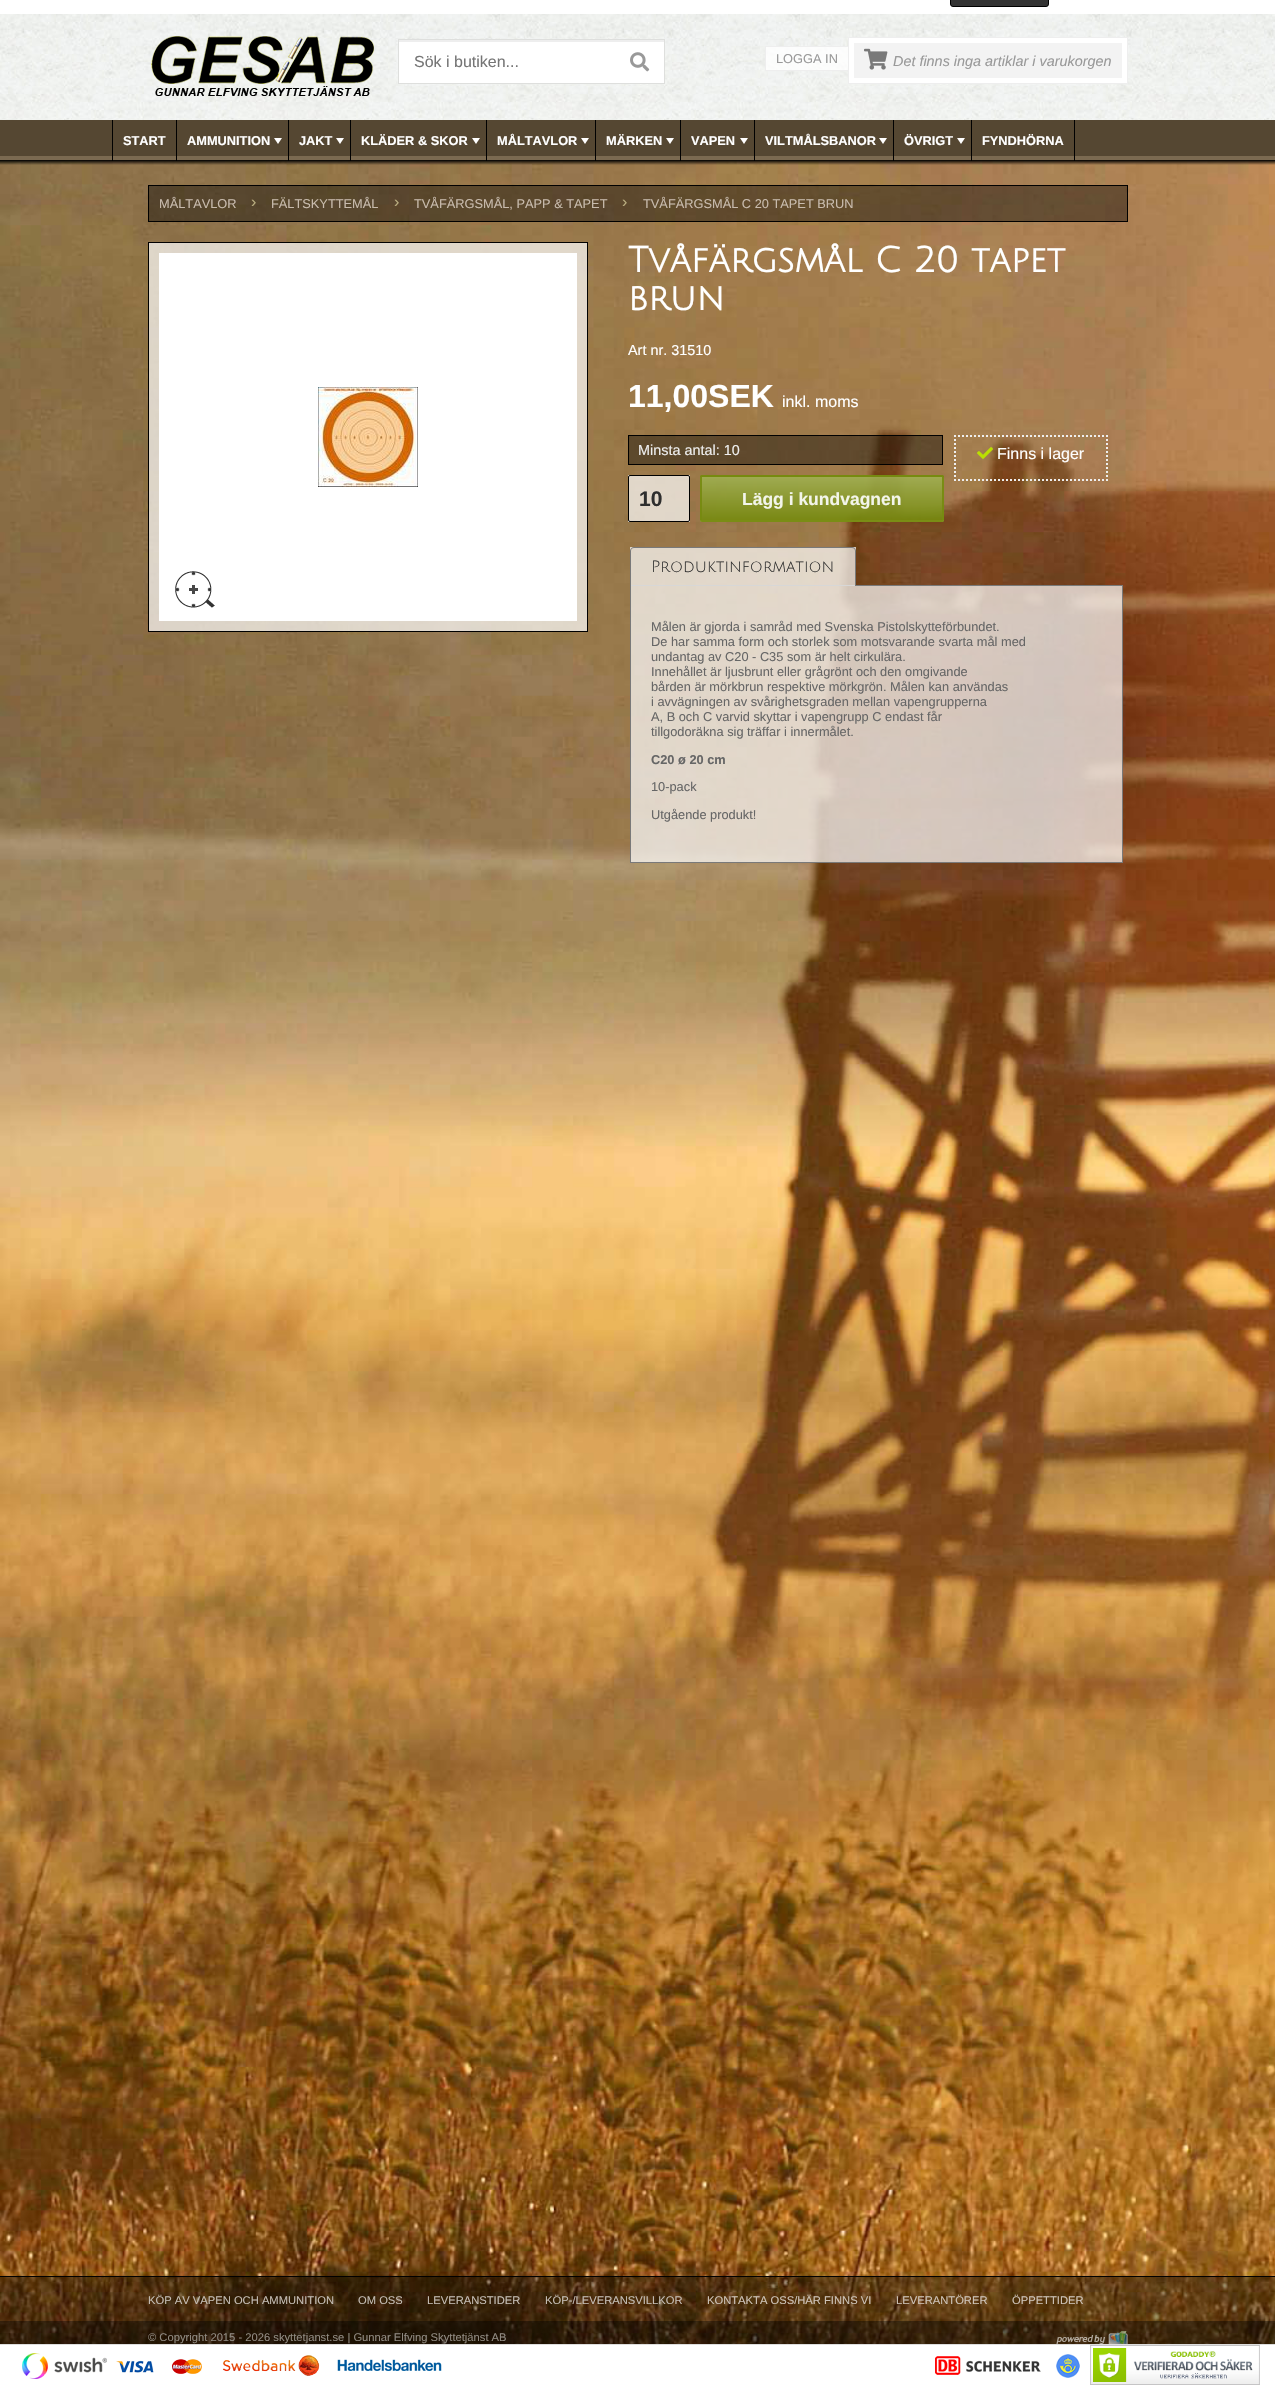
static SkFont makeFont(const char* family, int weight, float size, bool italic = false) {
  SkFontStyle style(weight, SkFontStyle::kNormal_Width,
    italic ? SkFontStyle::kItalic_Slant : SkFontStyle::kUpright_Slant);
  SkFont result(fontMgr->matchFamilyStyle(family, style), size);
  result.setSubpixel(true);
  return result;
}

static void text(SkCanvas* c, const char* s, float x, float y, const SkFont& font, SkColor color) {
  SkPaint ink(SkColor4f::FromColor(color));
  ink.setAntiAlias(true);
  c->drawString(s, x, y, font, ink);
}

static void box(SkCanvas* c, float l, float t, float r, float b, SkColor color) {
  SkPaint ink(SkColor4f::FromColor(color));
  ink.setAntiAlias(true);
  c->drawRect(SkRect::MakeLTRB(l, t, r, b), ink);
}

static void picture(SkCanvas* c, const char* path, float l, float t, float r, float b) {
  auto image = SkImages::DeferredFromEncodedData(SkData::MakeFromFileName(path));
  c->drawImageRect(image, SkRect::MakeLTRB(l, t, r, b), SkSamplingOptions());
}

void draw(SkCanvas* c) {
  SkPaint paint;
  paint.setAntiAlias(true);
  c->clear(0xffffffff);
  picture(c, "img_01.png", 0, 120, 1275, 2344);
  paint.setColor(0xff333333);
  c->drawRoundRect(SkRect::MakeLTRB(950.5f, -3.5f, 1048.5f, 6.5f), 2.5f, 2.5f, paint);
  paint.setStyle(SkPaint::kStroke_Style);
  paint.setStrokeWidth(1);
  paint.setColor(0xff000000);
  c->drawRoundRect(SkRect::MakeLTRB(950.5f, -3.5f, 1048.5f, 6.5f), 2.5f, 2.5f, paint);
  picture(c, "img_02.png", 0, 14, 1275, 120);
  picture(c, "img_03.png", 151, 36, 374, 96);
  box(c, 399, 42, 664, 83, 0xffffffff);
  box(c, 399, 40, 664, 42, 0xffeeeeee);
  paint.setColor(0xffdedfdd);
  c->drawRect(SkRect::MakeLTRB(398.5f, 39.5f, 664.5f, 83.5f), paint);
  SkFont face1 = makeFont("Liberation Sans", 400, 16);
  text(c, "Sök i butiken...", 414, 67, face1, 0xff757575);
  picture(c, "img_04.png", 630, 52, 650, 72);
  box(c, 766, 47, 848, 70, 0xc9ffffff);
  box(c, 765, 46, 848, 47, 0xffeeeeee);
  box(c, 765, 70, 848, 71, 0xffeeeeee);
  box(c, 765, 46, 766, 71, 0xffeeeeee);
  SkFont face2 = makeFont("Liberation Sans", 400, 12.8f);
  text(c, "LOGGA IN", 776, 63, face2, 0xff999999);
  paint.setStyle(SkPaint::kFill_Style);
  paint.setColor(0xffffffff);
  c->drawRect(SkRect::MakeLTRB(848.5f, 37.5f, 1127.5f, 83.5f), paint);
  paint.setStyle(SkPaint::kStroke_Style);
  paint.setColor(0xffeeeeee);
  c->drawRect(SkRect::MakeLTRB(848.5f, 37.5f, 1127.5f, 83.5f), paint);
  box(c, 854, 43, 1122, 78, 0xfff3f3f3);
  picture(c, "img_05.png", 864, 48, 888, 70);
  SkFont face3 = makeFont("Liberation Sans", 400, 14.4f, true);
  text(c, "Det finns inga artiklar i varukorgen", 893, 66, face3, 0xff999999);
  box(c, 112, 120, 113, 161, 0xff000000);
  box(c, 176, 120, 177, 161, 0xff000000);
  SkFont face4 = makeFont("Liberation Sans", 700, 12.8f);
  text(c, "START", 123, 145, face4, 0xffffffff);
  box(c, 288, 120, 289, 161, 0xff000000);
  text(c, "AMMUNITION", 187, 145, face4, 0xffffffff);
  paint.setStyle(SkPaint::kFill_Style);
  paint.setColor(0xffffffff);
  c->drawPath(SkPathBuilder().moveTo(278, 144).lineTo(274, 138).lineTo(282, 138).close().detach(), paint);
  box(c, 350, 120, 351, 161, 0xff000000);
  text(c, "JAKT", 299, 145, face4, 0xffffffff);
  c->drawPath(SkPathBuilder().moveTo(340, 144).lineTo(336, 138).lineTo(344, 138).close().detach(), paint);
  box(c, 486, 120, 487, 161, 0xff000000);
  text(c, "KLÄDER & SKOR", 361, 145, face4, 0xffffffff);
  c->drawPath(SkPathBuilder().moveTo(476, 144).lineTo(472, 138).lineTo(480, 138).close().detach(), paint);
  box(c, 595, 120, 596, 161, 0xff000000);
  text(c, "MÅLTAVLOR", 497, 145, face4, 0xffffffff);
  c->drawPath(SkPathBuilder().moveTo(585, 144).lineTo(581, 138).lineTo(589, 138).close().detach(), paint);
  box(c, 680, 120, 681, 161, 0xff000000);
  text(c, "MÄRKEN", 606, 145, face4, 0xffffffff);
  c->drawPath(SkPathBuilder().moveTo(670, 144).lineTo(666, 138).lineTo(674, 138).close().detach(), paint);
  box(c, 754, 120, 755, 161, 0xff000000);
  text(c, "VAPEN", 691, 145, face4, 0xffffffff);
  c->drawPath(SkPathBuilder().moveTo(744, 144).lineTo(740, 138).lineTo(748, 138).close().detach(), paint);
  box(c, 893, 120, 894, 161, 0xff000000);
  text(c, "VILTMÅLSBANOR", 765, 145, face4, 0xffffffff);
  c->drawPath(SkPathBuilder().moveTo(883, 144).lineTo(879, 138).lineTo(887, 138).close().detach(), paint);
  box(c, 971, 120, 972, 161, 0xff000000);
  text(c, "ÖVRIGT", 904, 145, face4, 0xffffffff);
  c->drawPath(SkPathBuilder().moveTo(961, 144).lineTo(957, 138).lineTo(965, 138).close().detach(), paint);
  box(c, 1074, 120, 1075, 161, 0xff000000);
  text(c, "FYNDHÖRNA", 982, 145, face4, 0xffffffff);
  paint.setColor(0x66000000);
  c->drawRect(SkRect::MakeLTRB(148.5f, 185.5f, 1127.5f, 221.5f), paint);
  paint.setStyle(SkPaint::kStroke_Style);
  paint.setColor(0xff000000);
  c->drawRect(SkRect::MakeLTRB(148.5f, 185.5f, 1127.5f, 221.5f), paint);
  text(c, "MÅLTAVLOR", 159, 208, face2, 0xffc8bbad);
  text(c, "›", 251, 207, face1, 0xffbaae80);
  text(c, "FÄLTSKYTTEMÅL", 271, 208, face2, 0xffc8bbad);
  text(c, "›", 394, 207, face1, 0xffbaae80);
  text(c, "TVÅFÄRGSMÅL, PAPP & TAPET", 414, 208, face2, 0xffc8bbad);
  text(c, "›", 622, 207, face1, 0xffbaae80);
  text(c, "TVÅFÄRGSMÅL C 20 TAPET BRUN", 643, 208, face2, 0xffc8bbad);
  paint.setStyle(SkPaint::kFill_Style);
  paint.setColor(0xb3ffffff);
  c->drawRect(SkRect::MakeLTRB(148.5f, 242.5f, 587.5f, 631.5f), paint);
  paint.setStyle(SkPaint::kStroke_Style);
  paint.setColor(0xff000000);
  c->drawRect(SkRect::MakeLTRB(148.5f, 242.5f, 587.5f, 631.5f), paint);
  box(c, 159, 253, 577, 621, 0xffffffff);
  picture(c, "img_06.png", 318, 387, 418, 487);
  picture(c, "img_07.png", 175, 571, 215, 608);
  SkFont face5 = makeFont("Julius Sans One", 700, 35.25f);
  text(c, "Tvåfärgsmål C 20 tapet", 628, 272, face5, 0xffffffff);
  text(c, "brun", 628, 310, face5, 0xffffffff);
  SkFont face6 = makeFont("Liberation Sans", 400, 14.4f);
  text(c, "Art nr. 31510", 628, 355, face6, 0xffffffff);
  SkFont face7 = makeFont("Liberation Sans", 700, 32);
  text(c, "11,00SEK", 628, 407, face7, 0xffffffff);
  text(c, "inkl. moms", 782, 407, face1, 0xffffffff);
  paint.setStyle(SkPaint::kFill_Style);
  paint.setColor(0x66000000);
  c->drawRect(SkRect::MakeLTRB(628.5f, 435.5f, 942.5f, 464.5f), paint);
  paint.setStyle(SkPaint::kStroke_Style);
  paint.setColor(0xff000000);
  c->drawRect(SkRect::MakeLTRB(628.5f, 435.5f, 942.5f, 464.5f), paint);
  text(c, "Minsta antal: 10", 638, 455, face6, 0xffeeeeee);
  box(c, 628, 475, 690, 522, 0xb3ffffff);
  c->drawRoundRect(SkRect::MakeLTRB(628.5f, 475.5f, 689.5f, 521.5f), 1.5f, 1.5f, paint);
  SkFont face8 = makeFont("Liberation Sans", 700, 21);
  text(c, "10", 639, 506, face8, 0xff2e2e2e);
  paint.setStrokeWidth(2);
  paint.setColor(0xe676890e);
  c->drawRoundRect(SkRect::MakeLTRB(701, 476, 943, 521), 1, 1, paint);
  SkFont face9 = makeFont("Liberation Sans", 700, 17.5f);
  text(c, "Lägg i kundvagnen", 742, 505, face9, 0xfff3f5ea);
  paint.setColor(0xffeeeeee);
  paint.setPathEffect(SkDashPathEffect::Make({{2, 2}}, 0));
  c->drawPath(SkPathBuilder().moveTo(954, 436).lineTo(1108, 436).detach(), paint);
  paint.setPathEffect(nullptr);
  paint.setPathEffect(SkDashPathEffect::Make({{2, 2}}, 0));
  c->drawPath(SkPathBuilder().moveTo(1107, 435).lineTo(1107, 481).detach(), paint);
  paint.setPathEffect(nullptr);
  paint.setPathEffect(SkDashPathEffect::Make({{2, 2}}, 0));
  c->drawPath(SkPathBuilder().moveTo(954, 480).lineTo(1108, 480).detach(), paint);
  paint.setPathEffect(nullptr);
  paint.setPathEffect(SkDashPathEffect::Make({{2, 2}}, 0));
  c->drawPath(SkPathBuilder().moveTo(955, 435).lineTo(955, 481).detach(), paint);
  paint.setPathEffect(nullptr);
  picture(c, "img_08.png", 977, 447, 993, 459);
  text(c, "Finns i lager", 997, 459, face1, 0xffffffff);
  paint.setStyle(SkPaint::kFill_Style);
  paint.setColor(0xb3ffffff);
  c->drawRect(SkRect::MakeLTRB(630.5f, 585.5f, 1122.5f, 862.5f), paint);
  paint.setStyle(SkPaint::kStroke_Style);
  paint.setStrokeWidth(1);
  paint.setColor(0xff797979);
  c->drawRect(SkRect::MakeLTRB(630.5f, 585.5f, 1122.5f, 862.5f), paint);
  box(c, 630, 547, 856, 586, 0xb3ffffff);
  paint.setStyle(SkPaint::kFill_Style);
  c->drawPath(SkPathBuilder(SkPathFillType::kEvenOdd).moveTo(634, 547).lineTo(852, 547).cubicTo(854, 547, 856, 549, 856, 551).lineTo(856, 586).lineTo(630, 586).lineTo(630, 551).cubicTo(630, 549, 632, 547, 634, 547).close().moveTo(634, 548).lineTo(852, 548).cubicTo(854, 548, 855, 549, 855, 551).lineTo(855, 586).lineTo(631, 586).lineTo(631, 551).cubicTo(631, 549, 632, 548, 634, 548).close().detach(), paint);
  SkFont face10 = makeFont("Julius Sans One", 400, 16);
  text(c, "Produktinformation", 651, 572, face10, 0xff2e2e2e);
  text(c, "Målen är gjorda i samråd med Svenska Pistolskytteförbundet.", 651, 631, face2, 0xff666666);
  text(c, "De har samma form och storlek som motsvarande svarta mål med", 651, 646, face2, 0xff666666);
  text(c, "undantag av C20 - C35 som är helt cirkulära.", 651, 661, face2, 0xff666666);
  text(c, "Innehållet är ljusbrunt eller grågrönt och den omgivande", 651, 676, face2, 0xff666666);
  text(c, "bården är mörkbrun respektive mörkgrön. Målen kan användas", 651, 691, face2, 0xff666666);
  text(c, "i avvägningen av svårighetsgraden mellan vapengrupperna", 651, 706, face2, 0xff666666);
  text(c, "A, B och C varvid skyttar i vapengrupp C endast får", 651, 721, face2, 0xff666666);
  text(c, "tillgodoräkna sig träffar i innermålet.", 651, 736, face2, 0xff666666);
  text(c, "C20 ø 20 cm", 651, 764, face4, 0xff666666);
  text(c, "10-pack", 651, 791, face2, 0xff666666);
  text(c, "Utgående produkt!", 651, 819, face2, 0xff666666);
  box(c, 0, 2277, 1275, 2344, 0x66000000);
  box(c, 0, 2276, 1275, 2277, 0xff000000);
  SkFont face11 = makeFont("Liberation Sans", 400, 11.2f);
  text(c, "KÖP AV VAPEN OCH AMMUNITION", 148, 2304, face11, 0xffc5beb6);
  text(c, "OM OSS", 358, 2304, face11, 0xffc5beb6);
  text(c, "LEVERANSTIDER", 427, 2304, face11, 0xffc5beb6);
  text(c, "KÖP-/LEVERANSVILLKOR", 545, 2304, face11, 0xffc5beb6);
  text(c, "KONTAKTA OSS/HÄR FINNS VI", 707, 2304, face11, 0xffcdc3b8);
  text(c, "LEVERANTÖRER", 896, 2304, face11, 0xffcdc3b8);
  text(c, "ÖPPETTIDER", 1012, 2304, face11, 0xffcdc3b8);
  box(c, 0, 2321, 1275, 2344, 0x66000000);
  text(c, "© Copyright 2015 - 2026 skyttetjanst.se | Gunnar Elfving Skyttetjänst AB", 148, 2341, face11, 0xff908a82);
  picture(c, "img_09.png", 1056, 2331, 1128, 2344);
  box(c, 0, 2344, 1275, 2345, 0xffdddddd);
  picture(c, "img_10.png", 22, 2353, 107, 2379);
  picture(c, "img_11.png", 116, 2359, 202, 2374);
  picture(c, "img_12.png", 222, 2355, 442, 2376);
  picture(c, "img_13.png", 935, 2356, 1041, 2375);
  picture(c, "img_14.png", 1056, 2354, 1080, 2378);
  picture(c, "img_15.png", 1090, 2345, 1260, 2385);
}
